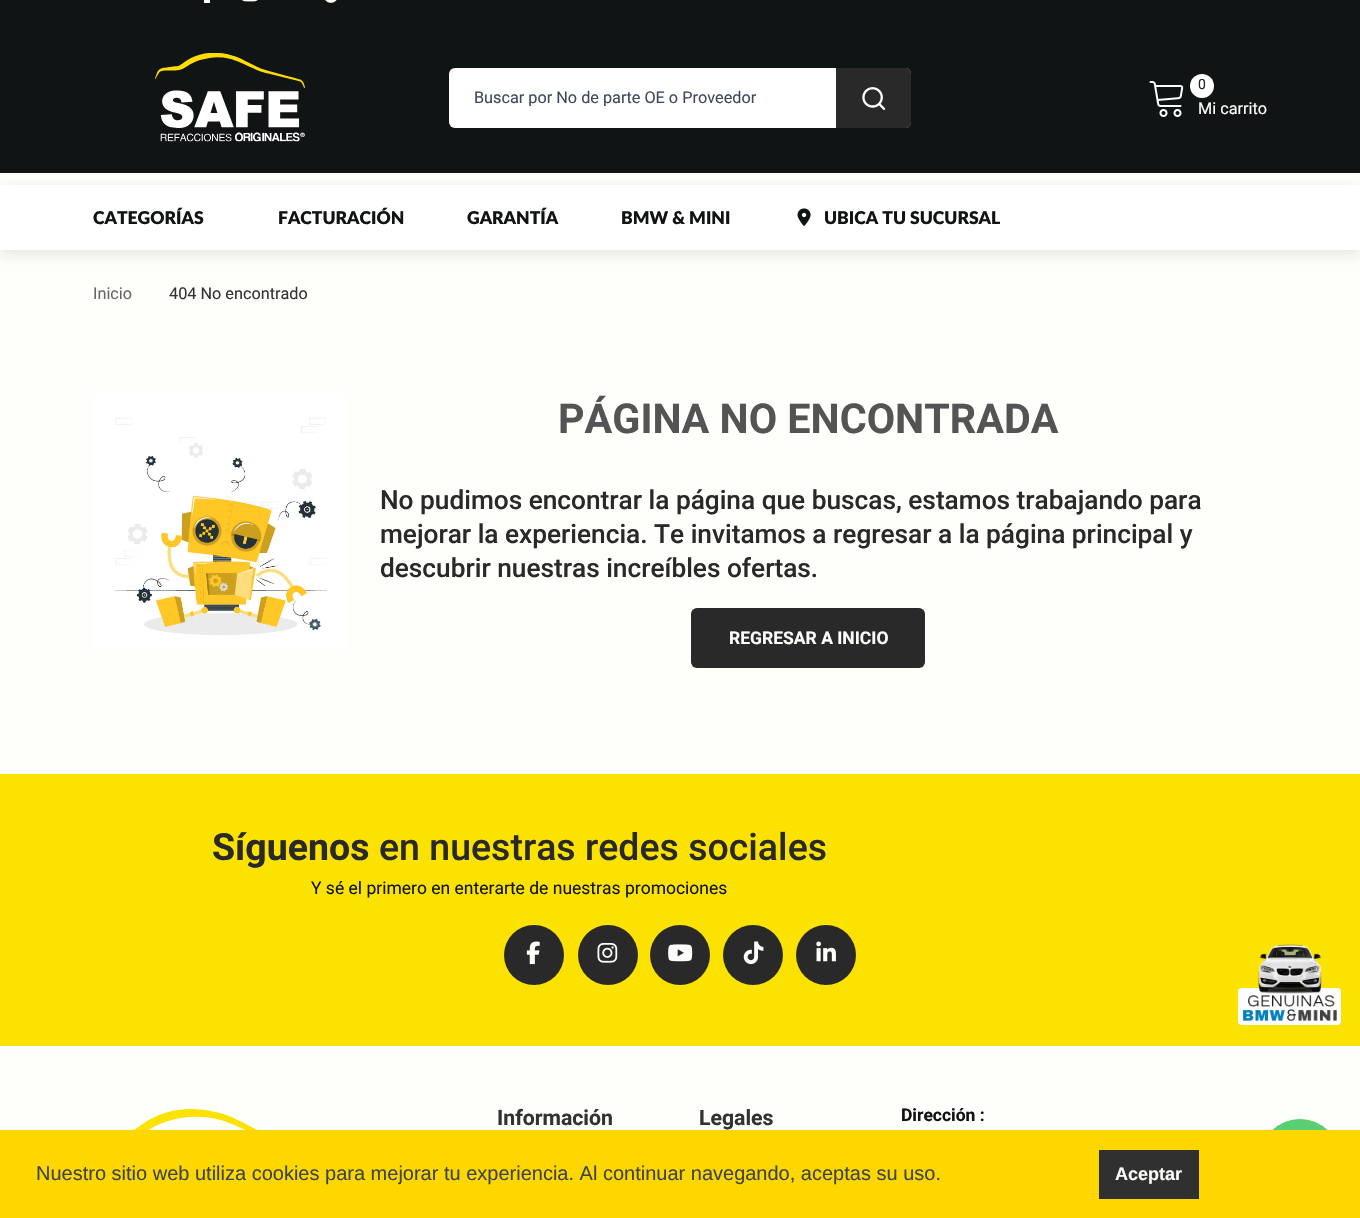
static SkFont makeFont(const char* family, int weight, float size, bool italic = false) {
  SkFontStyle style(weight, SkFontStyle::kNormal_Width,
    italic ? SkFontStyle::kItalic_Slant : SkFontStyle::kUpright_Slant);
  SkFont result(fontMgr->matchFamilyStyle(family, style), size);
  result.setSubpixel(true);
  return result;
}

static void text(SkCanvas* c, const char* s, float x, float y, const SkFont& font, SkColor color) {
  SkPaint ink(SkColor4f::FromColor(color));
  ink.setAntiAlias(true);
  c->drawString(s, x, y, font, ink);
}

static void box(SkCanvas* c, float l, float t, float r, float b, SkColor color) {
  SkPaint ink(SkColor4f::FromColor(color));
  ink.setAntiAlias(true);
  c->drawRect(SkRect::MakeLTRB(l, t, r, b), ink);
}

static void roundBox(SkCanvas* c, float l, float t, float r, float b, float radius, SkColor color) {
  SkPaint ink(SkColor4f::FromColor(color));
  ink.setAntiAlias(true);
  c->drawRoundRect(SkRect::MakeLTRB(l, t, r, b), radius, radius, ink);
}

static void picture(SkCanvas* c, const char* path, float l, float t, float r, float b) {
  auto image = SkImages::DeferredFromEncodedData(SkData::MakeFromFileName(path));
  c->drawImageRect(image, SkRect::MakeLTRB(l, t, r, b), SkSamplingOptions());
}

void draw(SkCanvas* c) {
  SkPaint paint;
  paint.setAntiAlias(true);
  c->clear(0xfffefffa);
  box(c, 0, 0, 1360, 21, 0xff101415);
  box(c, 204, 0, 210, 3, 0xfffefffa);
  picture(c, "img_01.png", 242, 0, 258, 2);
  picture(c, "img_02.png", 325, 0, 337, 3);
  paint.setColor(0x1a000000);
  paint.setMaskFilter(SkMaskFilter::MakeBlur(kNormal_SkBlurStyle, 7));
  c->drawRect(SkRect::MakeLTRB(0, 189, 1360, 254), paint);
  paint.setMaskFilter(nullptr);
  box(c, 0, 21, 1360, 173, 0xff101415);
  roundBox(c, 449, 68, 911, 128, 6, 0xffffffff);
  c->save();
  c->clipRect(SkRect::MakeLTRB(474, 88, 830, 106));
  SkFont face1 = makeFont("Roboto", 400, 16.25f);
  text(c, "Buscar por No de parte OE o Proveedor", 474, 103, face1, 0xff3e485c);
  c->restore();
  paint.setColor(0xff292929);
  c->drawPath(SkPathBuilder().moveTo(836, 68).lineTo(905, 68).cubicTo(908.5f, 68, 911, 70.5f, 911, 74).lineTo(911, 122).cubicTo(911, 125.5f, 908.5f, 128, 905, 128).lineTo(836, 128).close().detach(), paint);
  picture(c, "img_03.png", 862, 87, 886, 110);
  picture(c, "img_04.png", 155, 53, 305, 142);
  picture(c, "img_05.png", 1149, 81, 1184, 117);
  paint.setColor(0xffffffff);
  c->drawCircle(1202, 86, 12, paint);
  SkFont face2 = makeFont("Roboto", 400, 14);
  text(c, "0", 1198, 89, face2, 0xff222222);
  text(c, "Mi carrito", 1198, 114, face1, 0xfffefffa);
  box(c, 0, 185, 1360, 250, 0xffffffff);
  SkFont face3 = makeFont("Lato", 800, 17.5f);
  text(c, "CATEGORÍAS", 93, 224, face3, 0xff101415);
  text(c, "FACTURACIÓN", 278, 224, face3, 0xff101415);
  text(c, "GARANTÍA", 467, 224, face3, 0xff101415);
  text(c, "BMW & MINI", 621, 224, face3, 0xff101415);
  picture(c, "img_06.png", 797, 208, 811, 226);
  text(c, "UBICA TU SUCURSAL", 824, 224, face3, 0xff101415);
  text(c, "Inicio", 93, 299, face1, 0xff666666);
  text(c, "404 No encontrado", 169, 299, face1, 0xff333333);
  picture(c, "img_07.png", 93, 394, 348, 650);
  SkFont face4 = makeFont("Roboto", 700, 41.25f);
  text(c, "PÁGINA NO ENCONTRADA", 558, 433, face4, 0xff545454);
  SkFont face5 = makeFont("Roboto", 500, 26.25f);
  text(c, "No pudimos encontrar la página que buscas, estamos trabajando para", 380, 509, face5, 0xff292929);
  text(c, "mejorar la experiencia. Te invitamos a regresar a la página principal y", 380, 543, face5, 0xff292929);
  text(c, "descubrir nuestras increíbles ofertas.", 380, 577, face5, 0xff292929);
  roundBox(c, 691, 608, 925, 668, 6, 0xff292929);
  SkFont face6 = makeFont("Roboto", 700, 17.5f);
  text(c, "REGRESAR A INICIO", 729, 644, face6, 0xfffefffa);
  box(c, 0, 774, 1360, 1046, 0xfffce200);
  SkFont face7 = makeFont("Roboto", 700, 37.5f);
  text(c, "Síguenos", 212, 860, face7, 0xff292929);
  SkFont face8 = makeFont("Roboto", 500, 37.5f);
  text(c, "en nuestras redes sociales", 379, 860, face8, 0xff292929);
  SkFont face9 = makeFont("Roboto", 400, 17.5f);
  text(c, "Y sé el primero en enterarte de nuestras promociones", 311, 894, face9, 0xff101415);
  paint.setColor(0xff292929);
  c->drawCircle(534, 955, 30, paint);
  picture(c, "img_08.png", 526, 941, 540, 965);
  c->drawCircle(608, 955, 30, paint);
  picture(c, "img_09.png", 597, 943, 618, 963);
  c->drawCircle(680, 955, 30, paint);
  picture(c, "img_10.png", 668, 944, 693, 962);
  c->drawCircle(753, 955, 30, paint);
  picture(c, "img_11.png", 743, 941, 764, 965);
  c->drawCircle(826, 955, 30, paint);
  picture(c, "img_12.png", 816, 941, 836, 962);
  picture(c, "img_13.png", 133, 1109, 258, 1130);
  SkFont face10 = makeFont("Roboto", 700, 21.25f);
  text(c, "Información", 497, 1125, face10, 0xff333333);
  text(c, "Legales", 699, 1125, face10, 0xff333333);
  text(c, "Dirección :", 901, 1121, face6, 0xff101415);
  roundBox(c, 1238, 988, 1341, 1025, 4, 0xffffffff);
  picture(c, "img_14.png", 1242, 944, 1337, 1022);
  paint.setColor(0xff59ce72);
  c->drawCircle(1300, 1159, 40, paint);
  box(c, 0, 1130, 1360, 1218, 0xfffed700);
  SkFont face11 = makeFont("Liberation Sans", 400, 20);
  text(c, "Nuestro sitio web utiliza cookies para mejorar tu experiencia. Al continuar navegando, aceptas su uso.", 36, 1180, face11, 0xff3e444a);
  box(c, 1099, 1150, 1199, 1199, 0xff303030);
  SkFont face12 = makeFont("Liberation Sans", 700, 18);
  text(c, "Aceptar", 1115, 1180, face12, 0xfffefffa);
}
